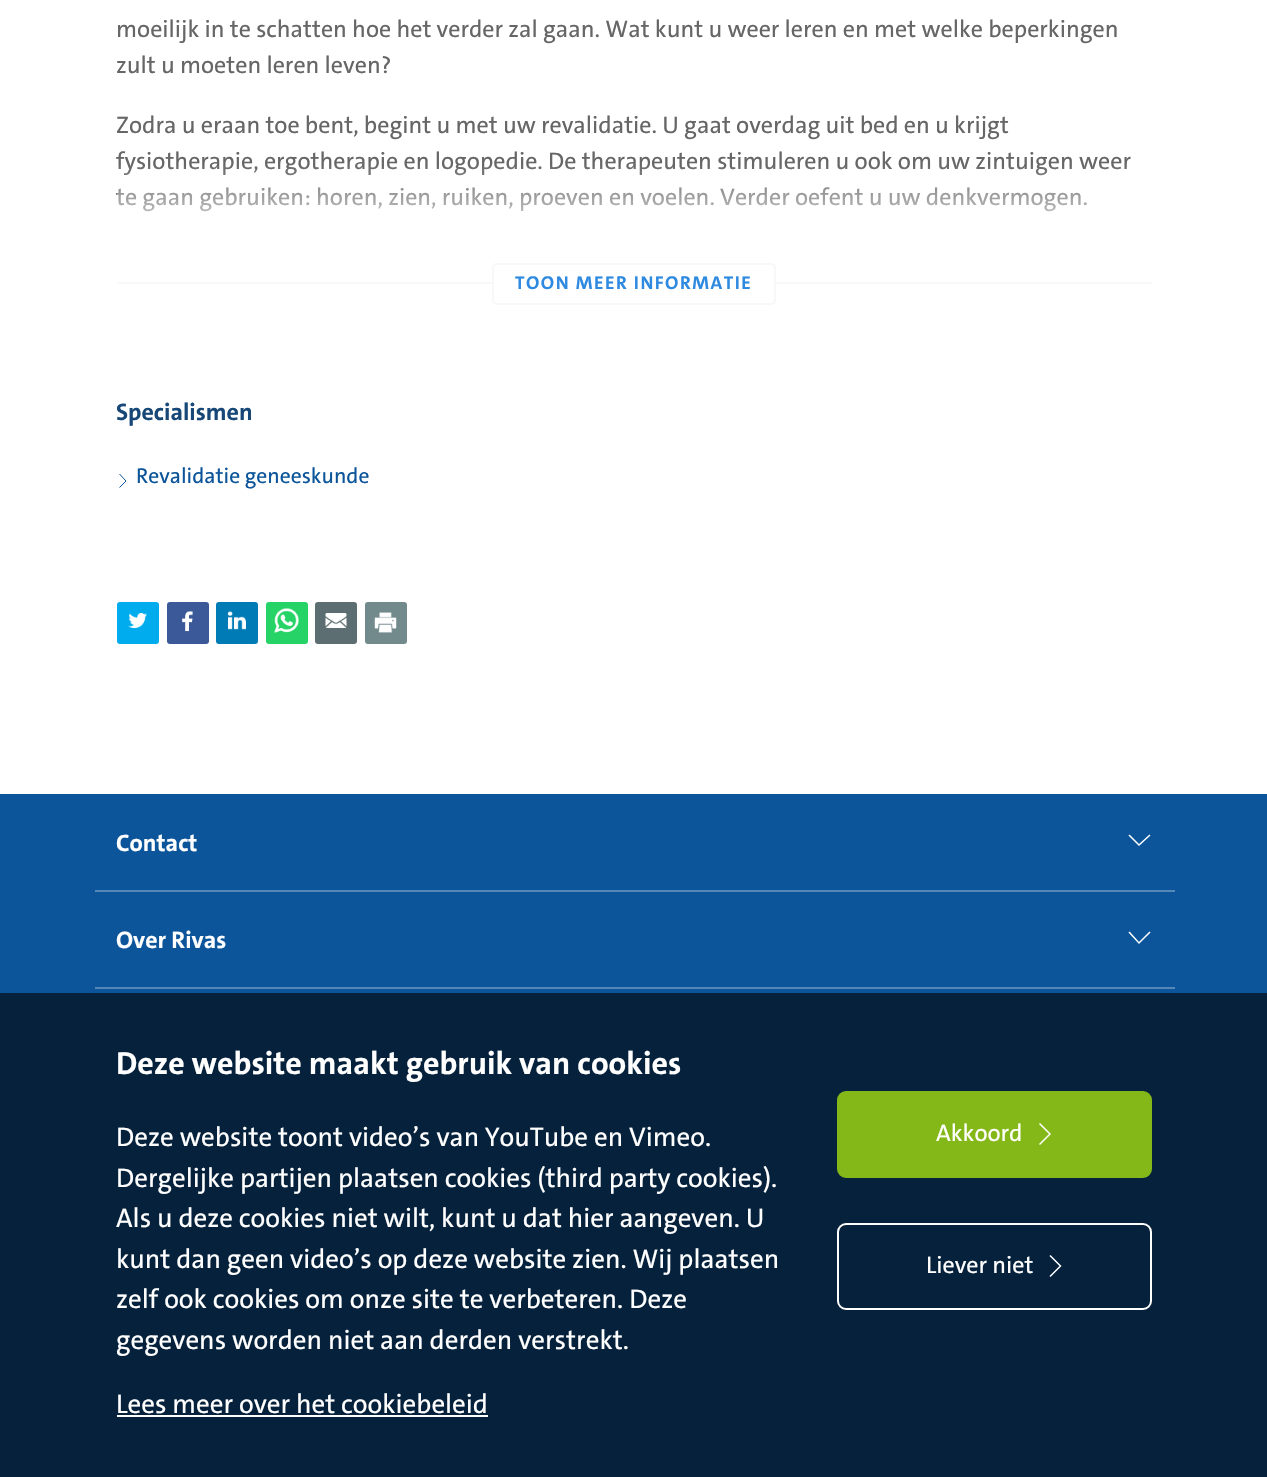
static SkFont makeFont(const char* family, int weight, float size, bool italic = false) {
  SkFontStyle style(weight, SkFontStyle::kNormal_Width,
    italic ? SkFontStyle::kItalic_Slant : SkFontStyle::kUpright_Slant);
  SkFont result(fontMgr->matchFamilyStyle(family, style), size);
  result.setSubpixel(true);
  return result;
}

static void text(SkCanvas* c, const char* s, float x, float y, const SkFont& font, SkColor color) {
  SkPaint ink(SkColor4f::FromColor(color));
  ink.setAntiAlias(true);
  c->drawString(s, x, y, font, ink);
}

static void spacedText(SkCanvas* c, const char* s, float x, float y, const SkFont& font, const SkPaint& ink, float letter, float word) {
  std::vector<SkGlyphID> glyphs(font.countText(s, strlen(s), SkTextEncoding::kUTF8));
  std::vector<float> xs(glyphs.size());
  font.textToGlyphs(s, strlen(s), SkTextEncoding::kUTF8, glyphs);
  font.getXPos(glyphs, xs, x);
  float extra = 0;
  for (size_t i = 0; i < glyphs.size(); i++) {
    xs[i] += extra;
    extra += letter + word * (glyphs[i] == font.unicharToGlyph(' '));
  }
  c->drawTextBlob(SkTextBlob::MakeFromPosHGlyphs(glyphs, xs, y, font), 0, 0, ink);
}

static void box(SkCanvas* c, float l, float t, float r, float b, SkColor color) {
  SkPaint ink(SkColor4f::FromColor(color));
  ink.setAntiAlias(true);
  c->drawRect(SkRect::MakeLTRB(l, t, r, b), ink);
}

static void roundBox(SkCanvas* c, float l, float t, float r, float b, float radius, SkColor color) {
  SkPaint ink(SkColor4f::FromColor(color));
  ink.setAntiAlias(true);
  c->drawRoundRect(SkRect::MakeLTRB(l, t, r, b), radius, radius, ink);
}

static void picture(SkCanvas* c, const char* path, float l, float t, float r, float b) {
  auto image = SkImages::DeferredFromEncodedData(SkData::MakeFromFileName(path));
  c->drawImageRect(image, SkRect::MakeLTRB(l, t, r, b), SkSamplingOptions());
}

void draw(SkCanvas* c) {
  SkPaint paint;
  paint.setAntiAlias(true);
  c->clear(0xffffffff);
  SkFont face1 = makeFont("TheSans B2", 400, 24);
  text(c, "moeilijk in te schatten hoe het verder zal gaan. Wat kunt u weer leren en met welke beperkingen", 116, 37, face1, 0xff666666);
  text(c, "zult u moeten leren leven?", 116, 73, face1, 0xff666666);
  text(c, "Zodra u eraan toe bent, begint u met uw revalidatie. U gaat overdag uit bed en u krijgt", 116, 133, face1, 0xff666666);
  text(c, "fysiotherapie, ergotherapie en logopedie. De therapeuten stimuleren u ook om uw zintuigen weer", 116, 169, face1, 0xff666666);
  text(c, "te gaan gebruiken: horen, zien, ruiken, proeven en voelen. Verder oefent u uw denkvermogen.", 116, 205, face1, 0xff666666);
  {
    const SkColor colors[] = {0xffffffff, 0x00ffffff};
    const float stops[] = {0.25f, 1};
    const SkPoint ends[] = {{635, 282}, {635, 164}};
    paint.setShader(SkGradientShader::MakeLinear(ends, colors, stops, 2, SkTileMode::kClamp));
    paint.setAlpha(255);
  }
  c->drawRect(SkRect::MakeLTRB(117, 166, 1127, 212), paint);
  box(c, 117, 282, 1152, 284, 0xfff8f8f8);
  paint.setShader(nullptr);
  paint.setColor(0xffffffff);
  c->drawRoundRect(SkRect::MakeLTRB(493, 264, 775, 304), 4, 4, paint);
  paint.setStyle(SkPaint::kStroke_Style);
  paint.setStrokeWidth(2);
  paint.setColor(0xfff8f8f8);
  c->drawRoundRect(SkRect::MakeLTRB(493, 264, 775, 304), 4, 4, paint);
  SkFont face2 = makeFont("TheSans B2", 700, 18.7f);
  paint.setStyle(SkPaint::kFill_Style);
  paint.setColor(0xff2e8ae0);
  spacedText(c, "TOON MEER INFORMATIE", 515, 289, face2, paint, 1.5f, 0);
  SkFont face3 = makeFont("TheSans B2", 700, 24);
  text(c, "Specialismen", 116, 420, face3, 0xff164776);
  paint.setStyle(SkPaint::kStroke_Style);
  paint.setStrokeWidth(1);
  paint.setColor(0xff0c559a);
  c->drawPath(SkPathBuilder().moveTo(119.5f, 474).lineTo(126, 481).lineTo(119.5f, 487.5f).detach(), paint);
  SkFont face4 = makeFont("TheSans B2", 400, 21.6f);
  text(c, "Revalidatie geneeskunde", 136, 483, face4, 0xff0c559a);
  roundBox(c, 117, 602, 159, 644, 3, 0xff00aced);
  picture(c, "img_01.png", 128, 612, 147, 629);
  roundBox(c, 167, 602, 209, 644, 3, 0xff3b5998);
  picture(c, "img_02.png", 182, 611, 193, 632);
  roundBox(c, 216, 602, 258, 644, 3, 0xff007bb6);
  picture(c, "img_03.png", 227, 611, 246, 630);
  roundBox(c, 266, 602, 308, 644, 3, 0xff25d366);
  picture(c, "img_04.png", 274, 608, 299, 633);
  roundBox(c, 315, 602, 357, 644, 3, 0xff5c6e71);
  picture(c, "img_05.png", 325, 613, 347, 628);
  roundBox(c, 365, 602, 407, 644, 3, 0xff738a8d);
  picture(c, "img_06.png", 374, 612, 397, 633);
  box(c, 0, 794, 1267, 993, 0xff0c559a);
  box(c, 95, 890, 1175, 892, 0xff5588b8);
  text(c, "Contact", 116, 851, face3, 0xffffffff);
  paint.setStrokeWidth(1.5f);
  paint.setColor(0xffffffff);
  c->drawPath(SkPathBuilder().moveTo(1150, 835).lineTo(1139, 845).lineTo(1129, 835).detach(), paint);
  box(c, 95, 987, 1175, 989, 0xff5588b8);
  text(c, "Over Rivas", 116, 948, face3, 0xffffffff);
  c->drawPath(SkPathBuilder().moveTo(1150, 932).lineTo(1139, 943).lineTo(1129, 932).detach(), paint);
  box(c, 0, 993, 1267, 1477, 0xff05213b);
  SkFont face5 = makeFont("TheSans B2", 700, 32);
  text(c, "Deze website maakt gebruik van cookies", 116, 1074, face5, 0xffffffff);
  SkFont face6 = makeFont("TheSans B2", 400, 27);
  text(c, "Deze website toont video’s van YouTube en Vimeo.", 116, 1146, face6, 0xffffffff);
  text(c, "Dergelijke partijen plaatsen cookies (third party cookies).", 116, 1187, face6, 0xffffffff);
  text(c, "Als u deze cookies niet wilt, kunt u dat hier aangeven. U", 116, 1227, face6, 0xffffffff);
  text(c, "kunt dan geen video’s op deze website zien. Wij plaatsen", 116, 1268, face6, 0xffffffff);
  text(c, "zelf ook cookies om onze site te verbeteren. Deze", 116, 1308, face6, 0xffffffff);
  text(c, "gegevens worden niet aan derden verstrekt.", 116, 1349, face6, 0xffffffff);
  text(c, "Lees meer over het cookiebeleid", 116, 1413, face6, 0xffffffff);
  box(c, 117, 1415, 488, 1417, 0xffffffff);
  paint.setStyle(SkPaint::kFill_Style);
  paint.setColor(0xff84b818);
  c->drawRoundRect(SkRect::MakeLTRB(838, 1092, 1151, 1177), 8, 8, paint);
  paint.setStyle(SkPaint::kStroke_Style);
  paint.setStrokeWidth(2);
  c->drawRoundRect(SkRect::MakeLTRB(838, 1092, 1151, 1177), 8, 8, paint);
  text(c, "Akkoord", 936, 1141, face1, 0xffffffff);
  paint.setStrokeWidth(1.5f);
  paint.setColor(0xffffffff);
  c->drawPath(SkPathBuilder().moveTo(1039.5f, 1123.5f).lineTo(1050, 1134).lineTo(1039.5f, 1144.5f).detach(), paint);
  paint.setStrokeWidth(2);
  c->drawRoundRect(SkRect::MakeLTRB(838, 1224, 1151, 1309), 8, 8, paint);
  text(c, "Liever niet", 926, 1273, face1, 0xffffffff);
  paint.setStrokeWidth(1.5f);
  c->drawPath(SkPathBuilder().moveTo(1050, 1255.5f).lineTo(1060.5f, 1266).lineTo(1050, 1276.5f).detach(), paint);
}
